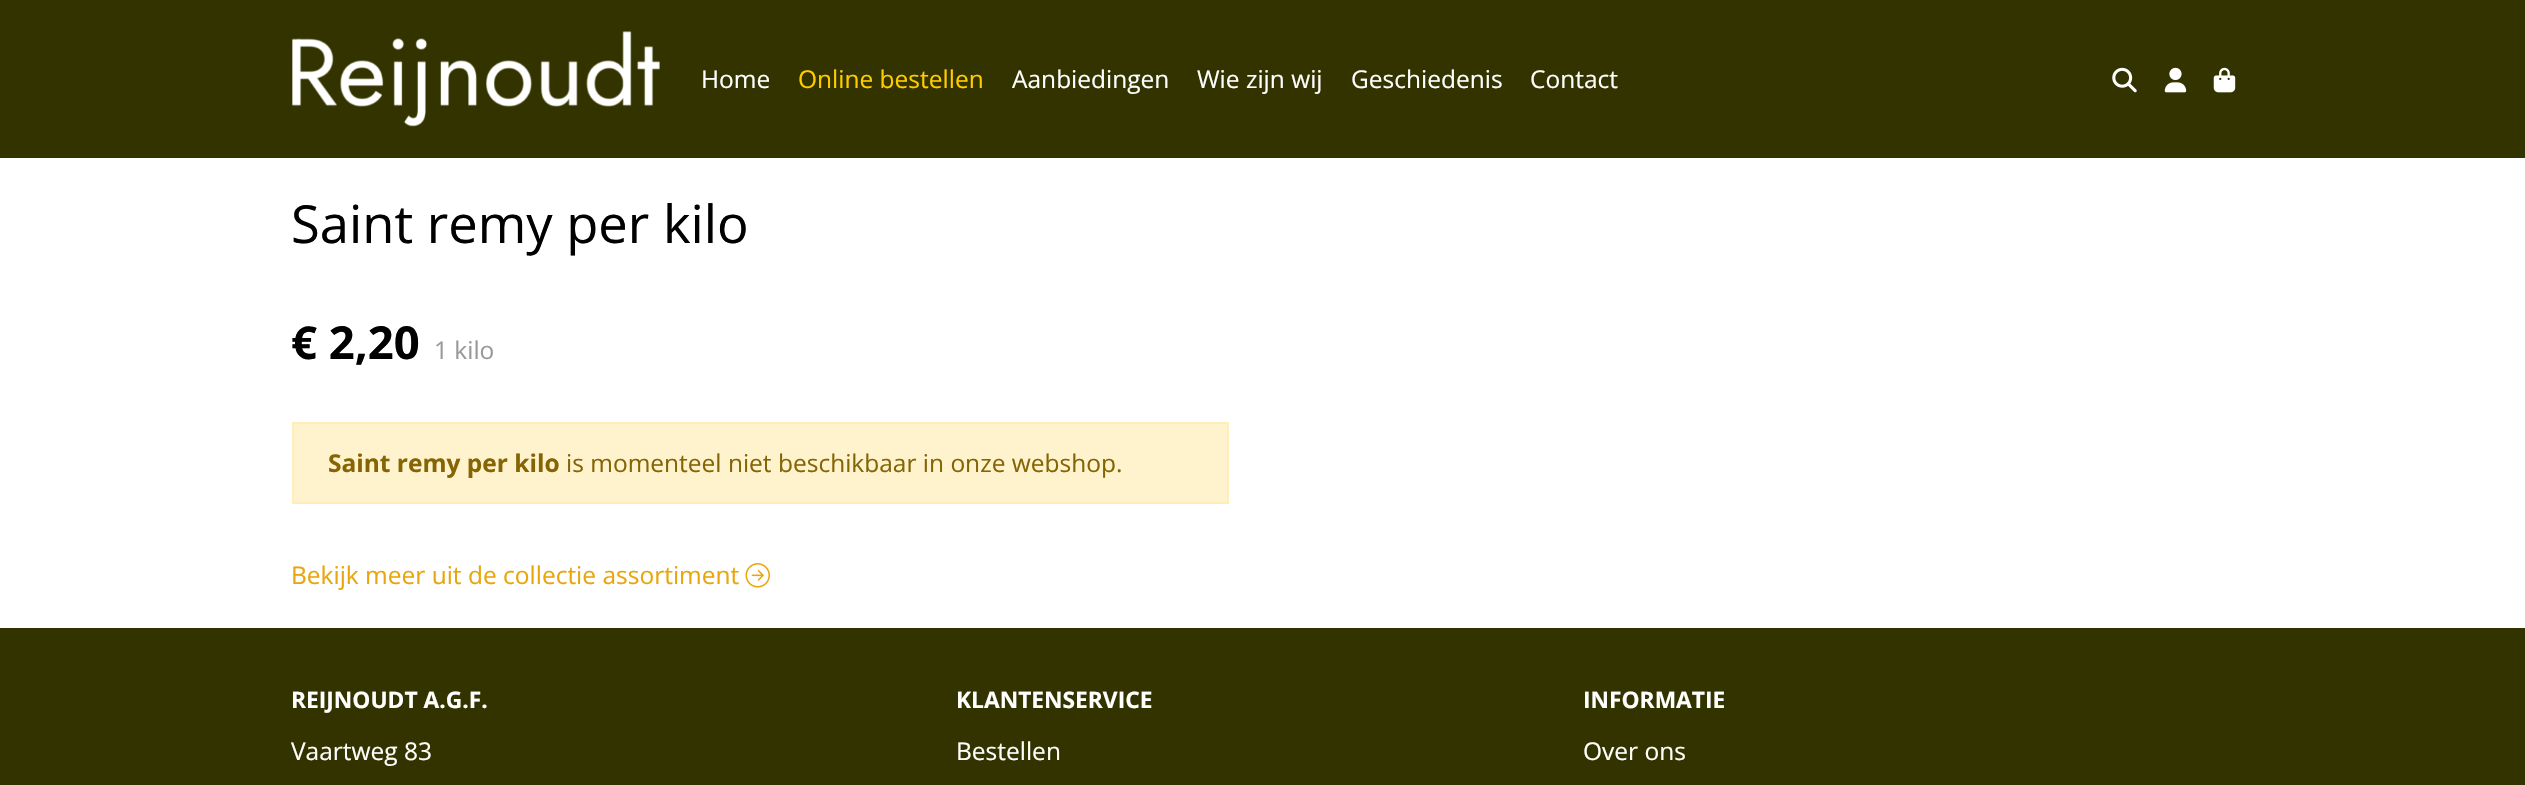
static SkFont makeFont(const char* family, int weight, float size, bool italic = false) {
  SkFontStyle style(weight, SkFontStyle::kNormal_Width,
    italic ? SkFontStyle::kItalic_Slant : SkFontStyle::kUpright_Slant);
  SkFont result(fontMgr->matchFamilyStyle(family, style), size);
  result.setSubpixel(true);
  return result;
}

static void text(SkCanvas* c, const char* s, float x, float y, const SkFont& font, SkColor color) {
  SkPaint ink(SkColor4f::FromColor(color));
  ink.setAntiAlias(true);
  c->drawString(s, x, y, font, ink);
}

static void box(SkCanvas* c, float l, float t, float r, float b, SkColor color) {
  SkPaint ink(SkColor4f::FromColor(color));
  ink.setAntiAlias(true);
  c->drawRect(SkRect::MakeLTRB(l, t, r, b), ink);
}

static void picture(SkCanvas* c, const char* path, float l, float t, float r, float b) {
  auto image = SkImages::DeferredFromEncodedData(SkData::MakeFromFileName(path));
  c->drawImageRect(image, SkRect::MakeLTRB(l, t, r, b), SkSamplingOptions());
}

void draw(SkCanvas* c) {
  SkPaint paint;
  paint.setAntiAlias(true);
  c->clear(0xffffffff);
  box(c, 0, 0, 2525, 158, 0xff333300);
  picture(c, "img_01.png", 292, 31, 660, 127);
  SkFont face1 = makeFont("Open Sans", 400, 24.5f);
  text(c, "Home", 701, 88, face1, 0xffffffff);
  text(c, "Online bestellen", 798, 88, face1, 0xffffcc00);
  text(c, "Aanbiedingen", 1012, 88, face1, 0xffffffff);
  text(c, "Wie zijn wij", 1197, 88, face1, 0xffffffff);
  text(c, "Geschiedenis", 1351, 88, face1, 0xffffffff);
  text(c, "Contact", 1530, 88, face1, 0xffffffff);
  picture(c, "img_02.png", 2112, 67, 2137, 93);
  picture(c, "img_03.png", 2164, 67, 2187, 93);
  picture(c, "img_04.png", 2213, 67, 2236, 93);
  SkFont face2 = makeFont("Open Sans", 400, 52.5f);
  text(c, "Saint remy per kilo", 291, 243, face2, 0xff000000);
  SkFont face3 = makeFont("Open Sans", 700, 45.5f);
  text(c, "€ 2,20", 291, 359, face3, 0xff000000);
  text(c, "1 kilo", 434, 359, face1, 0xff999999);
  paint.setColor(0xfffff3cd);
  c->drawRect(SkRect::MakeLTRB(293, 423, 1228, 503), paint);
  paint.setStyle(SkPaint::kStroke_Style);
  paint.setStrokeWidth(2);
  paint.setColor(0xffffeeba);
  c->drawRect(SkRect::MakeLTRB(293, 423, 1228, 503), paint);
  SkFont face4 = makeFont("Open Sans", 700, 24.5f);
  text(c, "Saint remy per kilo", 328, 472, face4, 0xff856404);
  text(c, "is momenteel niet beschikbaar in onze webshop.", 566, 472, face1, 0xff856404);
  text(c, "Bekijk meer uit de collectie assortiment", 291, 584, face1, 0xffe8a60c);
  picture(c, "img_05.png", 745, 563, 770, 588);
  box(c, 0, 628, 2525, 785, 0xff333300);
  SkFont face5 = makeFont("Open Sans", 700, 22.75f);
  text(c, "REIJNOUDT A.G.F.", 291, 708, face5, 0xffffffff);
  text(c, "Vaartweg 83", 291, 760, face1, 0xffffffff);
  text(c, "KLANTENSERVICE", 956, 708, face5, 0xffffffff);
  text(c, "Bestellen", 956, 760, face1, 0xffffffff);
  text(c, "INFORMATIE", 1583, 708, face5, 0xffffffff);
  text(c, "Over ons", 1583, 760, face1, 0xffffffff);
}
